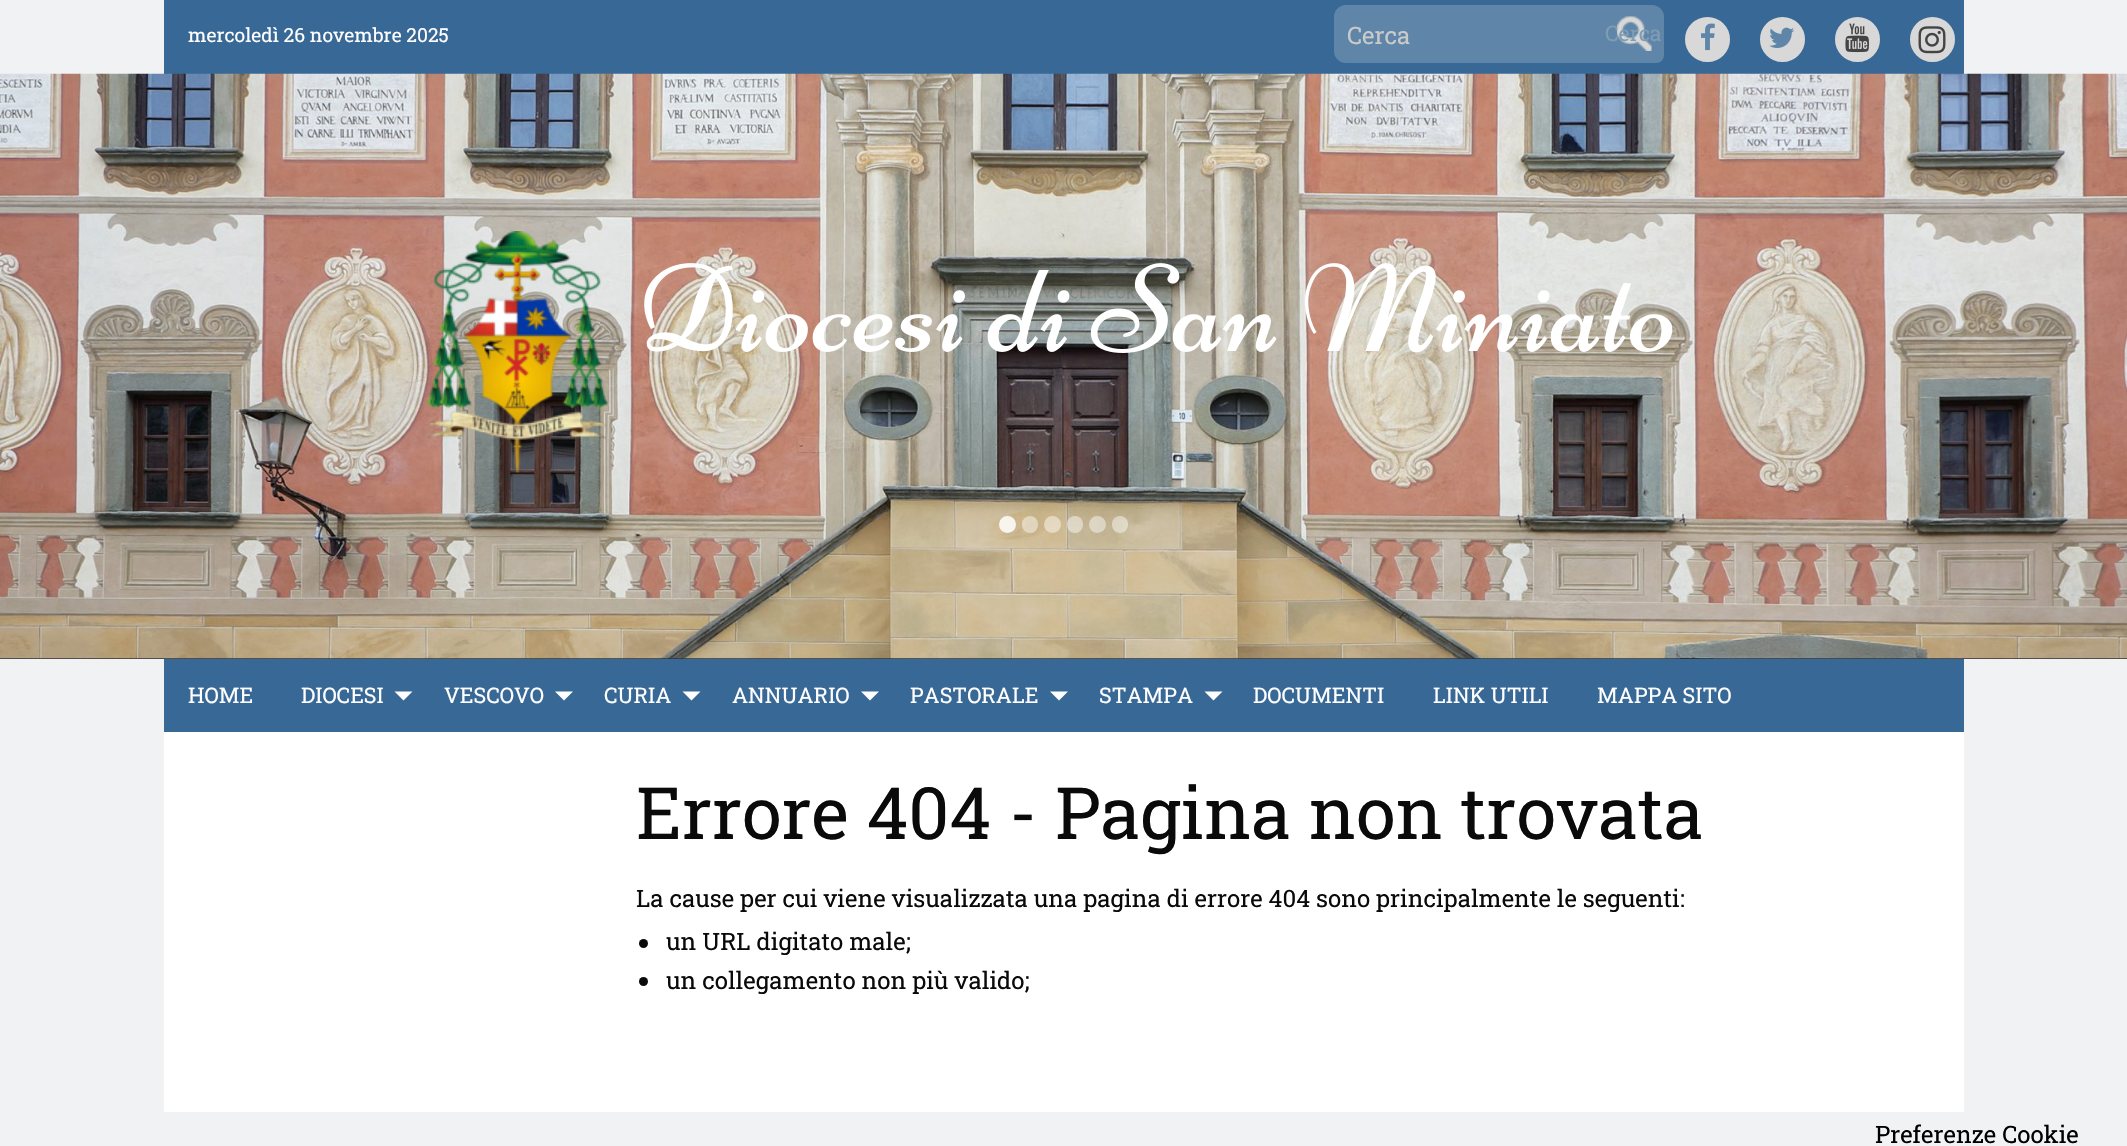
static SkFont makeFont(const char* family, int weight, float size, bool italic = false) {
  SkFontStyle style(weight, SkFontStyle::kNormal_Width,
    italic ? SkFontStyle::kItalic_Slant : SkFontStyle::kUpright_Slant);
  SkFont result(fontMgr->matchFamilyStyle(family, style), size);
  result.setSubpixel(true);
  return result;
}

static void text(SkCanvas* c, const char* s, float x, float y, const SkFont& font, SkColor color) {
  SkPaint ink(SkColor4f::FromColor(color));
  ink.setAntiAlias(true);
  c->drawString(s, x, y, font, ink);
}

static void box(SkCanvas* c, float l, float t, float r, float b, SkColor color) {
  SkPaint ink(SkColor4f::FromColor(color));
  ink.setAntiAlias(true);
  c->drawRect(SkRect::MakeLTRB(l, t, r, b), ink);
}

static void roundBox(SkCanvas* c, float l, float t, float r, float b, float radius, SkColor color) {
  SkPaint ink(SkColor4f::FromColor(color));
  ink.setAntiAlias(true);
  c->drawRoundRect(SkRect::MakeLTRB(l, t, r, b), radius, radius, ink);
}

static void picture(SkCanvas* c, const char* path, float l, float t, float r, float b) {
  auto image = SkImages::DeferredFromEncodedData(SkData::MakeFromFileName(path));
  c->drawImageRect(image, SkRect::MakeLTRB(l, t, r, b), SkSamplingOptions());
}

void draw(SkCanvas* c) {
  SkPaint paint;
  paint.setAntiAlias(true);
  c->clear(0xfff1f2f3);
  box(c, 164, 0, 1964, 74, 0xff386895);
  SkFont face1 = makeFont("Roboto Slab", 400, 19.25f);
  text(c, "mercoledì 26 novembre 2025", 188, 42, face1, 0xffffffff);
  paint.setColor(0xff5f86a8);
  c->drawPath(SkPathBuilder().moveTo(1346, 6).lineTo(1603, 6).lineTo(1603, 62).lineTo(1346, 62).cubicTo(1340, 62, 1335, 57, 1335, 51).lineTo(1335, 17).cubicTo(1335, 11, 1340, 6, 1346, 6).close().detach(), paint);
  paint.setStyle(SkPaint::kStroke_Style);
  paint.setStrokeWidth(2);
  c->drawPath(SkPathBuilder().moveTo(1346, 6).lineTo(1603, 6).lineTo(1603, 62).lineTo(1346, 62).cubicTo(1340, 62, 1335, 57, 1335, 51).lineTo(1335, 17).cubicTo(1335, 11, 1340, 6, 1346, 6).close().detach(), paint);
  SkFont face2 = makeFont("Roboto Slab", 400, 24);
  text(c, "Cerca", 1347, 44, face2, 0xffcacaca);
  paint.setStyle(SkPaint::kFill_Style);
  c->drawPath(SkPathBuilder().moveTo(1604, 5).lineTo(1652, 5).cubicTo(1658.5f, 5, 1664, 10.5f, 1664, 17).lineTo(1664, 55).cubicTo(1664, 59.5f, 1660.5f, 63, 1656, 63).lineTo(1604, 63).close().detach(), paint);
  picture(c, "img_01.png", 1617, 16, 1652, 51);
  SkFont face3 = makeFont("Roboto Slab", 400, 21.5f);
  text(c, "Cerca", 1605, 41, face3, 0xff809cb5);
  paint.setColor(0xffd8d8d8);
  c->drawCircle(1707.5f, 39.5f, 21.5f, paint);
  paint.setStyle(SkPaint::kStroke_Style);
  c->drawCircle(1707.5f, 39.5f, 21.5f, paint);
  picture(c, "img_02.png", 1701, 23, 1715, 51);
  paint.setStyle(SkPaint::kFill_Style);
  c->drawCircle(1782.5f, 39.5f, 21.5f, paint);
  paint.setStyle(SkPaint::kStroke_Style);
  c->drawCircle(1782.5f, 39.5f, 21.5f, paint);
  picture(c, "img_03.png", 1769, 27, 1794, 48);
  paint.setStyle(SkPaint::kFill_Style);
  c->drawCircle(1857.5f, 39.5f, 21.5f, paint);
  paint.setStyle(SkPaint::kStroke_Style);
  c->drawCircle(1857.5f, 39.5f, 21.5f, paint);
  picture(c, "img_04.png", 1845, 23, 1869, 53);
  paint.setStyle(SkPaint::kFill_Style);
  c->drawCircle(1932.5f, 39.5f, 21.5f, paint);
  paint.setStyle(SkPaint::kStroke_Style);
  c->drawCircle(1932.5f, 39.5f, 21.5f, paint);
  picture(c, "img_05.png", 1918, 26, 1946, 54);
  box(c, 0, 658, 2127, 659, 0xff333333);
  picture(c, "img_06.png", 0, 73, 2127, 659);
  paint.setStyle(SkPaint::kFill_Style);
  paint.setColor(0xd9ffffff);
  c->drawCircle(1007.5f, 524.5f, 8.5f, paint);
  roundBox(c, 1022, 516, 1038, 533, 8, 0x73ffffff);
  paint.setColor(0x73ffffff);
  c->drawCircle(1052.5f, 524.5f, 8.5f, paint);
  roundBox(c, 1067, 516, 1083, 533, 8, 0x73ffffff);
  c->drawCircle(1097.5f, 524.5f, 8.5f, paint);
  roundBox(c, 1112, 516, 1128, 533, 8, 0x73ffffff);
  picture(c, "img_07.png", 426, 231, 608, 473);
  picture(c, "img_08.png", 644, 263, 1673, 353);
  box(c, 164, 659, 1964, 732, 0xff386895);
  text(c, "HOME", 188, 703, face3, 0xffffffff);
  text(c, "DIOCESI", 301, 703, face3, 0xffffffff);
  paint.setColor(0xffffffff);
  c->drawPath(SkPathBuilder().moveTo(394.5f, 691.5f).lineTo(412.5f, 691.5f).lineTo(403.5f, 700.5f).close().detach(), paint);
  text(c, "VESCOVO", 444, 703, face3, 0xffffffff);
  c->drawPath(SkPathBuilder().moveTo(555, 691.5f).lineTo(573, 691.5f).lineTo(564, 700.5f).close().detach(), paint);
  text(c, "CURIA", 604, 703, face3, 0xffffffff);
  c->drawPath(SkPathBuilder().moveTo(682.5f, 691.5f).lineTo(700.5f, 691.5f).lineTo(691.5f, 700.5f).close().detach(), paint);
  text(c, "ANNUARIO", 732, 703, face3, 0xffffffff);
  c->drawPath(SkPathBuilder().moveTo(861, 691.5f).lineTo(879, 691.5f).lineTo(870, 700.5f).close().detach(), paint);
  text(c, "PASTORALE", 910, 703, face3, 0xffffffff);
  c->drawPath(SkPathBuilder().moveTo(1050, 691.5f).lineTo(1068, 691.5f).lineTo(1059, 700.5f).close().detach(), paint);
  text(c, "STAMPA", 1099, 703, face3, 0xffffffff);
  c->drawPath(SkPathBuilder().moveTo(1204.5f, 691.5f).lineTo(1222.5f, 691.5f).lineTo(1213.5f, 700.5f).close().detach(), paint);
  text(c, "DOCUMENTI", 1253, 703, face3, 0xffffffff);
  text(c, "LINK UTILI", 1433, 703, face3, 0xffffffff);
  text(c, "MAPPA SITO", 1597, 703, face3, 0xffffffff);
  box(c, 164, 732, 1964, 1112, 0xffffffff);
  SkFont face4 = makeFont("Roboto Slab", 400, 72);
  text(c, "Errore 404 - Pagina non trovata", 636, 839, face4, 0xff0a0a0a);
  text(c, "La cause per cui viene visualizzata una pagina di errore 404 sono principalmente le seguenti:", 636, 907, face2, 0xff0a0a0a);
  paint.setColor(0xff0a0a0a);
  c->drawCircle(643.5f, 943.5f, 4.5f, paint);
  text(c, "un URL digitato male;", 666, 950, face2, 0xff0a0a0a);
  c->drawCircle(643.5f, 981.5f, 4.5f, paint);
  text(c, "un collegamento non più valido;", 666, 989, face2, 0xff0a0a0a);
  text(c, "Preferenze Cookie", 1875, 1143, face2, 0xff000000);
}
